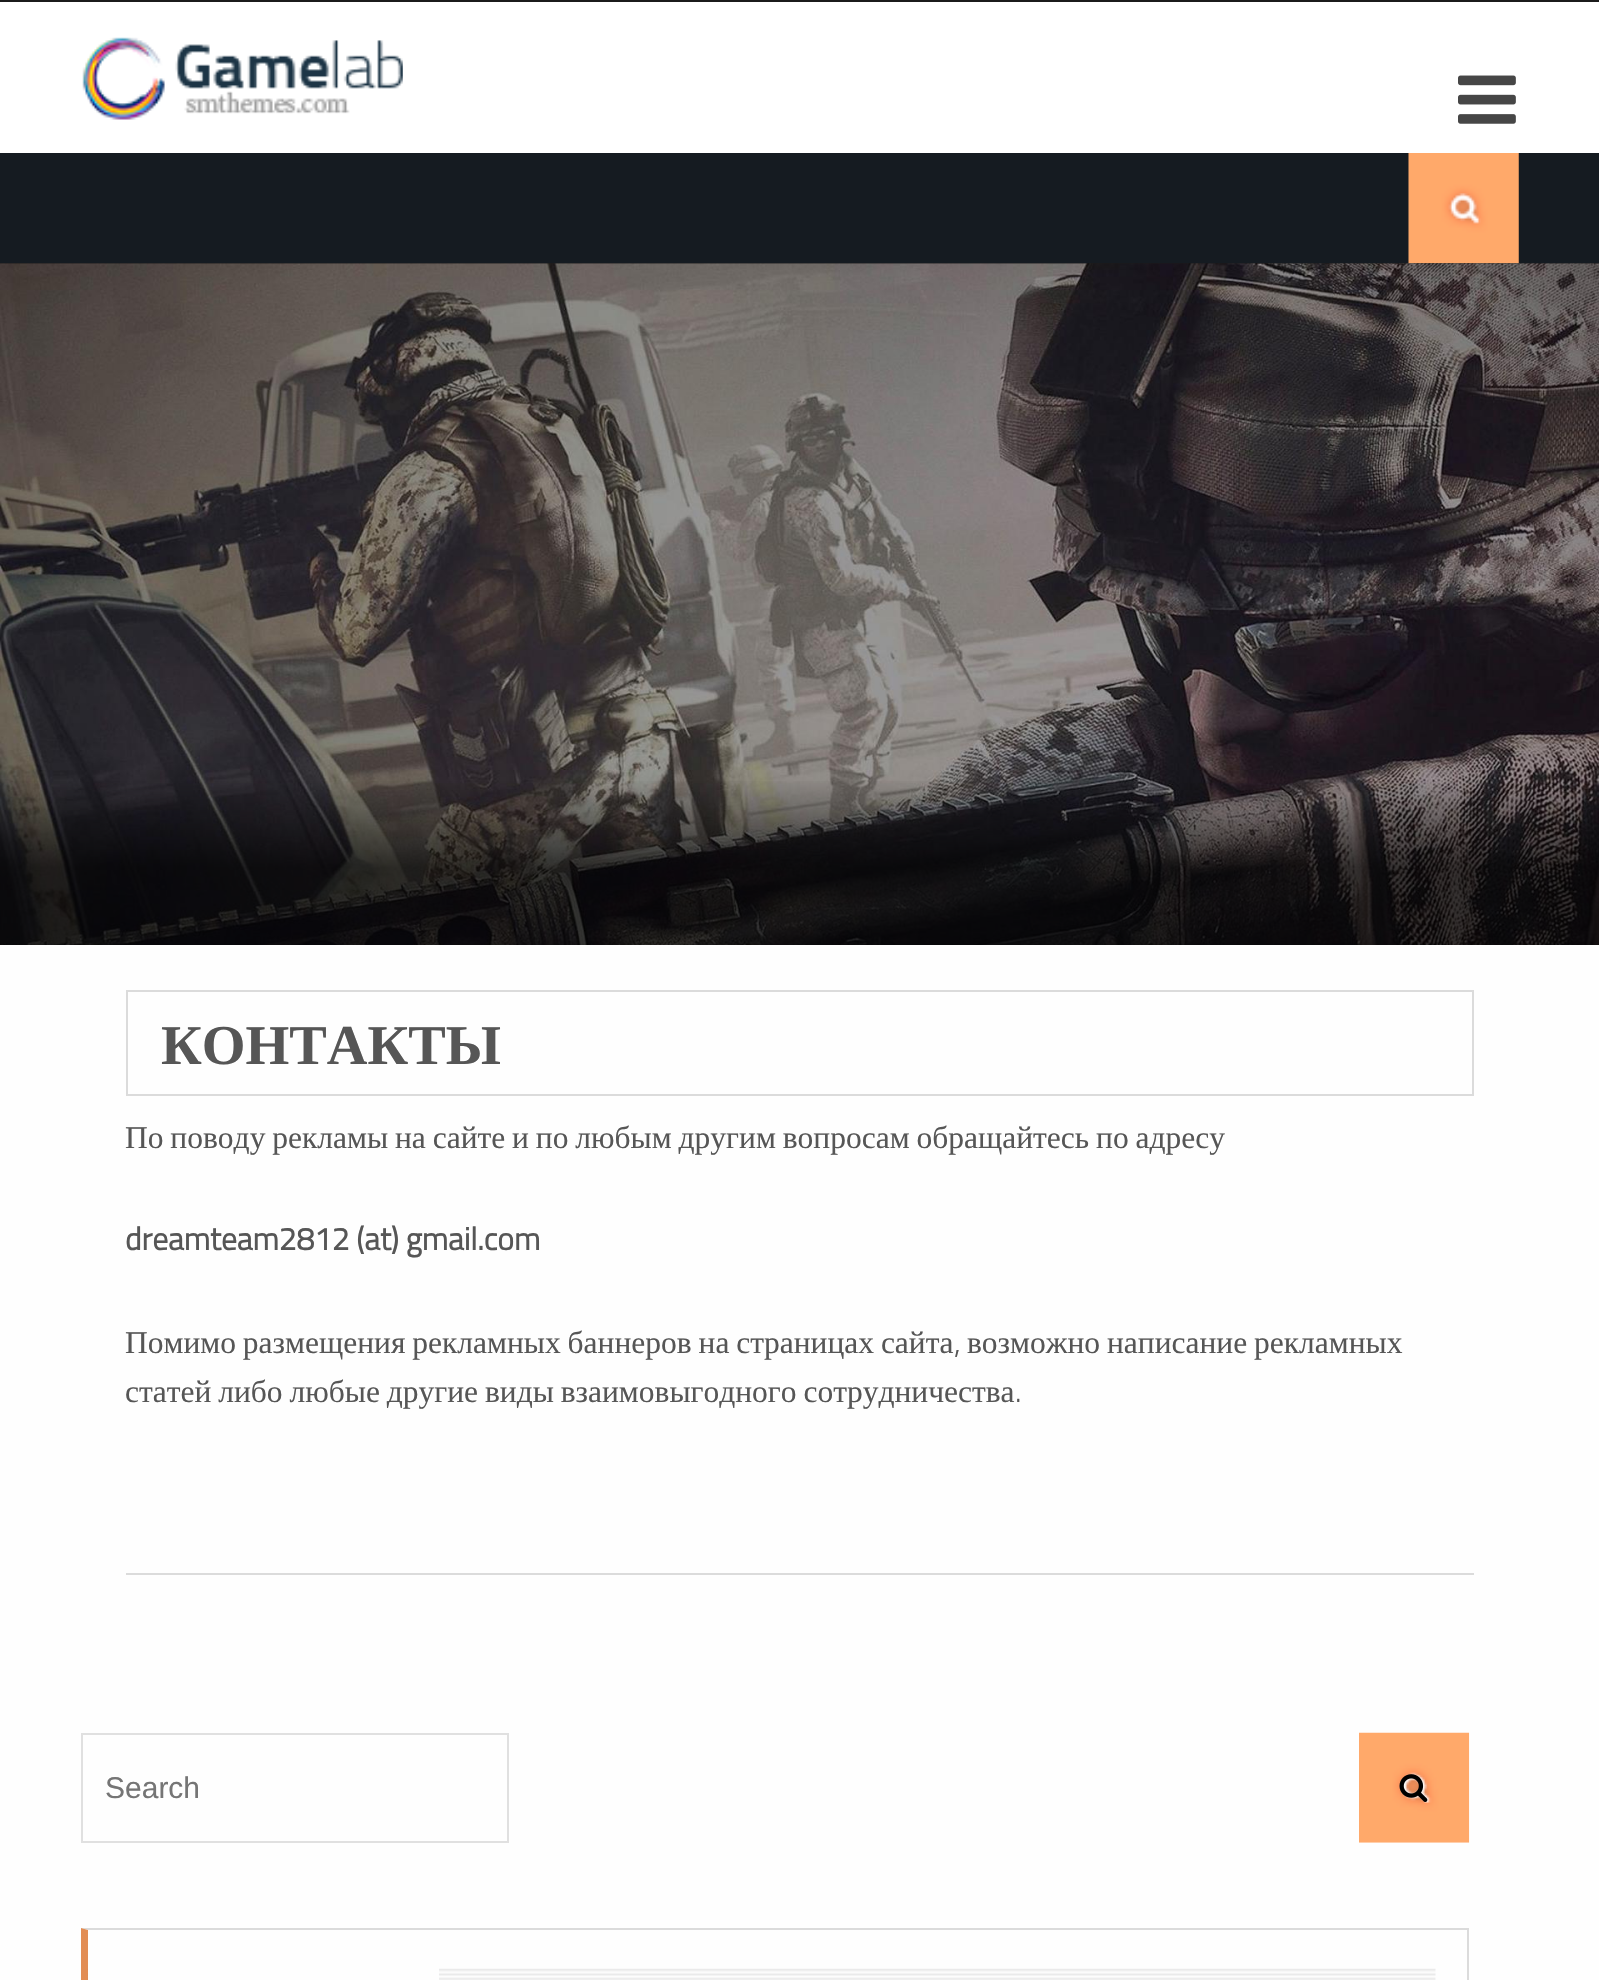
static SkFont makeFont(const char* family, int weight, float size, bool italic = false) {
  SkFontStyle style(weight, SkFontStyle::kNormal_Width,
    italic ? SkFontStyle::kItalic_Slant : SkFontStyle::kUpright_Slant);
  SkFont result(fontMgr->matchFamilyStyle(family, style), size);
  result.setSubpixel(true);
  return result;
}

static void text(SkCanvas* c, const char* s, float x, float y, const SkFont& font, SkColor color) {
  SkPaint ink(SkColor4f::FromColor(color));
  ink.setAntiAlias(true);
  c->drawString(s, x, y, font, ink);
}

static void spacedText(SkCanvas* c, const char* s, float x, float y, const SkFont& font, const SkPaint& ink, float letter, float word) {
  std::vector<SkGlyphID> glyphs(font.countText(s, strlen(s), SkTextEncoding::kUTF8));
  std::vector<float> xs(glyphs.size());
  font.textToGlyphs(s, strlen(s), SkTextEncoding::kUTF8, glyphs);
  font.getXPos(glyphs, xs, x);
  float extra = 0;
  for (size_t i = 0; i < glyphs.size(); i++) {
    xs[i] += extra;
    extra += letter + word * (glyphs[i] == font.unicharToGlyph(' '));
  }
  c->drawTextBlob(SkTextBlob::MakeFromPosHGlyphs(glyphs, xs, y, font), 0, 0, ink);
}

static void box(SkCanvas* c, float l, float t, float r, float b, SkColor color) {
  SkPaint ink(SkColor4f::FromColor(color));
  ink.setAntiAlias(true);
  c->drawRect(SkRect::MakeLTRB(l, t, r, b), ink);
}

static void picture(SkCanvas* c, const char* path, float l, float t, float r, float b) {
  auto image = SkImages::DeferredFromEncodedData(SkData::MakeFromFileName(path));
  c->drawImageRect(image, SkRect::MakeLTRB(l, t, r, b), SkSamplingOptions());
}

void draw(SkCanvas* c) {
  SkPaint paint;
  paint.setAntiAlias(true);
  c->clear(0xff1b1b1b);
  box(c, 0, 2, 1599, 153, 0xffffffff);
  picture(c, "img_01.png", 82, 37, 403, 120);
  picture(c, "img_02.png", 1458, 75, 1516, 124);
  box(c, 0, 153, 1599, 263, 0xff151b21);
  picture(c, "img_03.png", 1408, 153, 1519, 264);
  picture(c, "img_04.png", 0, 263, 1599, 945);
  {
    const SkColor colors[] = {0x00000000, 0x69000000, 0x87000000, 0xa6000000, 0xa6000000};
    const float stops[] = {0.63f, 0.7f, 0.72f, 0.74f, 0.99f};
    const SkPoint ends[] = {{800, 263}, {800, 1080}};
    paint.setShader(SkGradientShader::MakeLinear(ends, colors, stops, 5, SkTileMode::kClamp));
    paint.setAlpha(255);
  }
  c->drawRect(SkRect::MakeLTRB(0, 781, 1599, 945), paint);
  box(c, 0, 945, 1599, 1980, 0xfffefefe);
  box(c, 126, 1573, 1474, 1575, 0xffdbdbdb);
  paint.setStyle(SkPaint::kStroke_Style);
  paint.setStrokeWidth(2);
  paint.setShader(nullptr);
  paint.setColor(0xffdbdbdb);
  c->drawRect(SkRect::MakeLTRB(127, 991, 1473, 1095), paint);
  SkFont face1 = makeFont("Liberation Serif", 700, 56.25f);
  text(c, "КОНТАКТЫ", 161, 1064, face1, 0xff565656);
  SkFont face2 = makeFont("Liberation Serif", 400, 31.5f);
  paint.setStyle(SkPaint::kFill_Style);
  paint.setColor(0xff565656);
  spacedText(c, "По поводу рекламы на сайте и по любым другим вопросам обращайтесь по адресу", 125, 1148, face2, paint, 0, -1);
  SkFont face3 = makeFont("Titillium", 700, 31.5f);
  text(c, "dreamteam2812 (at) gmail.com", 125, 1250, face3, 0xff565656);
  spacedText(c, "Помимо размещения рекламных баннеров на страницах сайта", 125, 1353, face2, paint, 0, -1);
  SkFont face4 = makeFont("Titillium", 300, 31.5f);
  text(c, ",", 954, 1353, face4, 0xff565656);
  spacedText(c, "возможно написание рекламных", 967, 1353, face2, paint, 0, -1);
  spacedText(c, "статей либо любые другие виды взаимовыгодного сотрудничества", 125, 1402, face2, paint, 0, -1);
  text(c, ".", 1015, 1402, face4, 0xff565656);
  paint.setStyle(SkPaint::kStroke_Style);
  paint.setColor(0xffe0e0e0);
  c->drawRect(SkRect::MakeLTRB(82, 1734, 508, 1842), paint);
  SkFont face5 = makeFont("Liberation Sans", 400, 30);
  text(c, "Search", 105, 1798, face5, 0xff757575);
  picture(c, "img_05.png", 1359, 1732, 1470, 1843);
  picture(c, "img_06.png", 1399, 1774, 1428, 1802);
  paint.setStyle(SkPaint::kFill_Style);
  paint.setColor(0xffdbdbdb);
  c->drawPath(SkPathBuilder().moveTo(81, 1928).lineTo(1469, 1928).lineTo(1467, 1930).lineTo(88, 1930).close().detach(), paint);
  box(c, 1467, 1928, 1469, 1980, 0xffdbdbdb);
  paint.setColor(0xffe28d54);
  c->drawPath(SkPathBuilder().moveTo(81, 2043).lineTo(81, 1928).lineTo(88, 1930).lineTo(88, 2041).close().detach(), paint);
  picture(c, "img_07.png", 87, 1968, 1436, 1980);
  box(c, 88, 1968, 439, 1980, 0xfffefefe);
}
